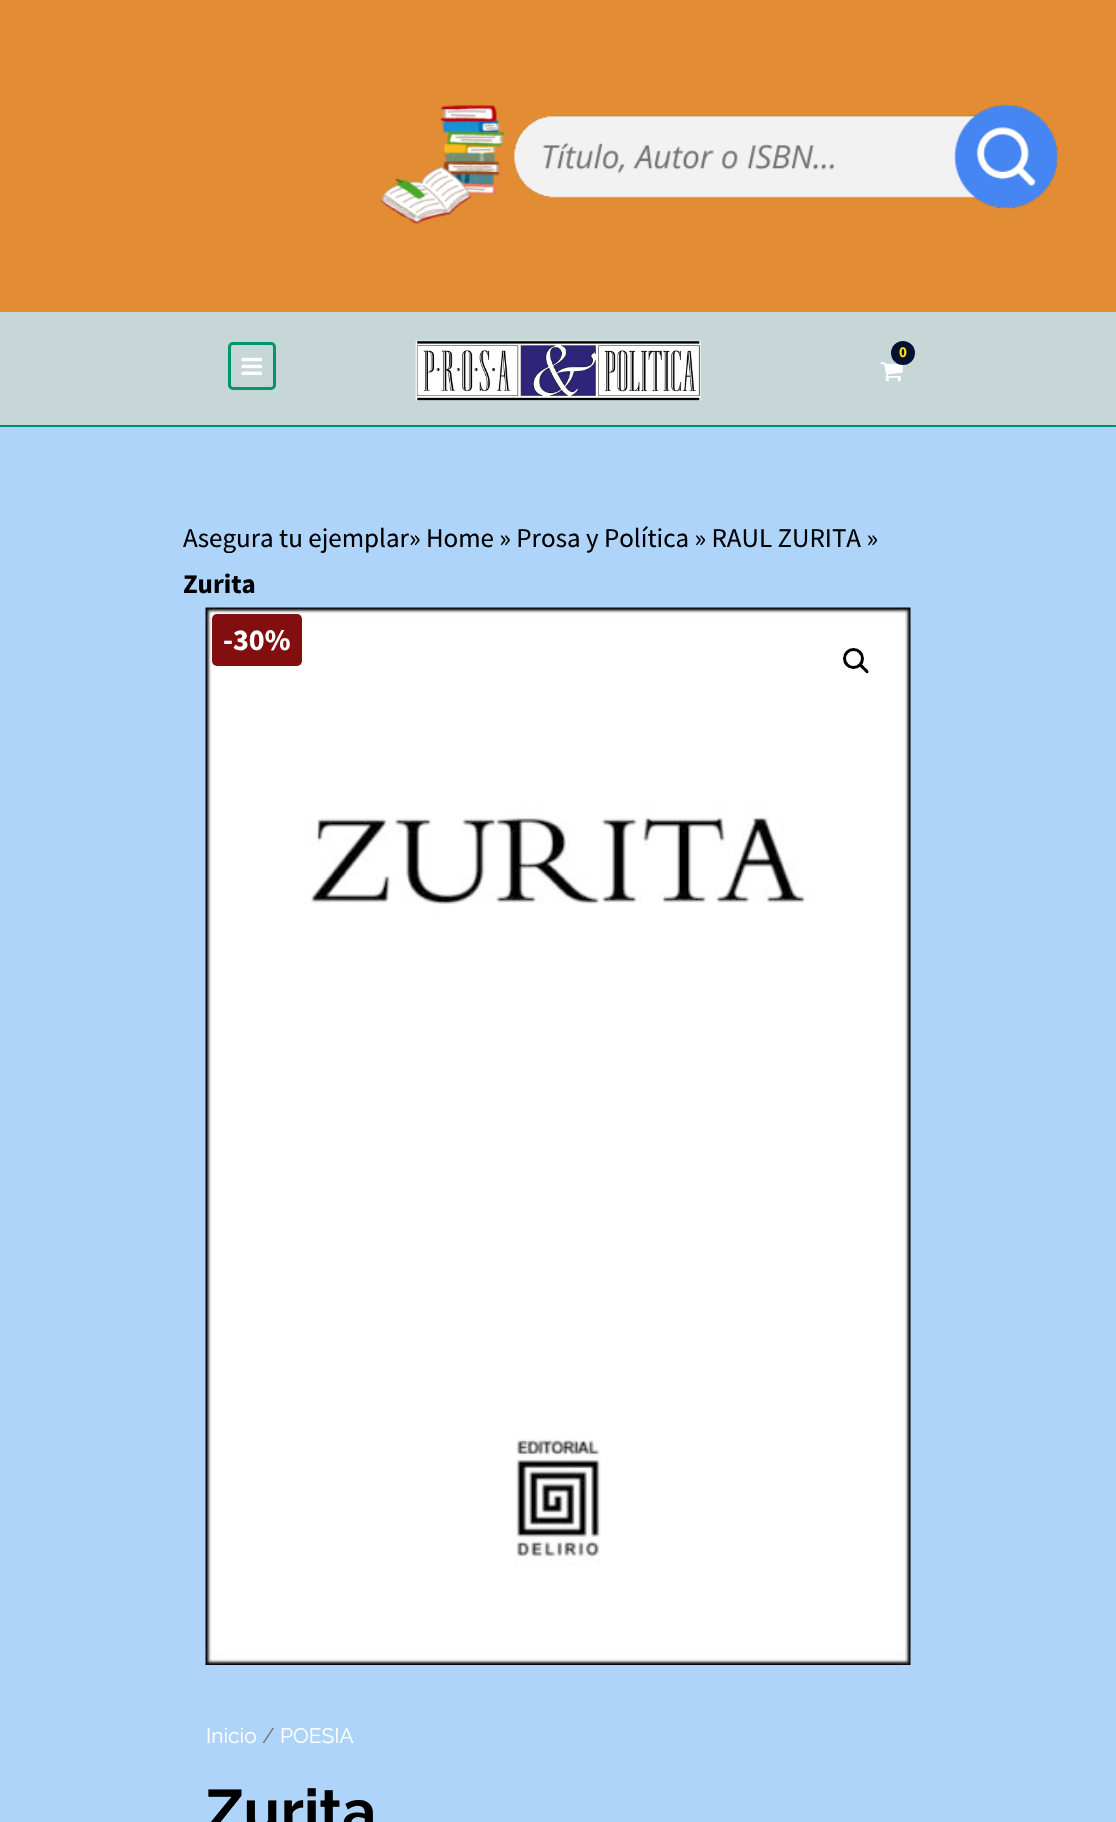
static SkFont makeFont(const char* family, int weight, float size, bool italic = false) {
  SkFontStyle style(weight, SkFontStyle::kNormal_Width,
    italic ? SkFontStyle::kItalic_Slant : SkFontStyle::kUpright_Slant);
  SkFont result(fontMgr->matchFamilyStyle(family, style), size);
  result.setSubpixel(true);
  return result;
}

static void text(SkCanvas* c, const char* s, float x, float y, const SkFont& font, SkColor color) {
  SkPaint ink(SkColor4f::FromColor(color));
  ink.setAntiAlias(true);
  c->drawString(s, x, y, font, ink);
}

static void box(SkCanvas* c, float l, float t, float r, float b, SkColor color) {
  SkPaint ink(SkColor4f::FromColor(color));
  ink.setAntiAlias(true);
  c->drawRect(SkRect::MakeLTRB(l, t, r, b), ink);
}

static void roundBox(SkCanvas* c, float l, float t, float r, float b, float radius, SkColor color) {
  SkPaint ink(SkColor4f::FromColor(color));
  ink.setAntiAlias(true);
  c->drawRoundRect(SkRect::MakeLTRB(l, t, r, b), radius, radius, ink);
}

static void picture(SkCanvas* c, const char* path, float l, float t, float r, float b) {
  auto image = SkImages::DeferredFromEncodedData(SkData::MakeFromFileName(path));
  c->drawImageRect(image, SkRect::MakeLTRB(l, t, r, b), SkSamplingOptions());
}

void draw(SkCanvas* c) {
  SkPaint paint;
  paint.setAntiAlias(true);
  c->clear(0xffe28c33);
  picture(c, "img_01.png", 380, 104, 1058, 224);
  box(c, 0, 427, 1116, 1822, 0xffaed4f9);
  box(c, 0, 425, 1116, 427, 0xff009768);
  paint.setColor(0x1a000000);
  paint.setMaskFilter(SkMaskFilter::MakeBlur(kNormal_SkBlurStyle, 1.5f));
  c->drawRect(SkRect::MakeLTRB(0, 314, 1116, 426), paint);
  paint.setMaskFilter(nullptr);
  box(c, 0, 312, 1116, 425, 0xffc7d7d7);
  paint.setStyle(SkPaint::kStroke_Style);
  paint.setStrokeWidth(3);
  paint.setColor(0xff009768);
  c->drawRoundRect(SkRect::MakeLTRB(229.5f, 343.5f, 274.5f, 388.5f), 3.5f, 3.5f, paint);
  picture(c, "img_02.png", 241, 357, 262, 375);
  picture(c, "img_03.png", 415, 340, 701, 401);
  picture(c, "img_04.png", 880, 362, 903, 382);
  paint.setStyle(SkPaint::kFill_Style);
  paint.setColor(0xff031132);
  c->drawCircle(903, 353, 12, paint);
  SkFont face1 = makeFont("Source Sans Pro", 700, 15);
  text(c, "0", 899, 357, face1, 0xffffdf0d);
  SkFont face2 = makeFont("Source Sans Pro", 400, 27);
  text(c, "Asegura tu ejemplar» Home » Prosa y Política » RAUL ZURITA »", 183, 547, face2, 0xff000000);
  SkFont face3 = makeFont("Source Sans Pro", 700, 27);
  text(c, "Zurita", 183, 593, face3, 0xff000000);
  picture(c, "img_05.png", 205, 607, 911, 1665);
  roundBox(c, 212, 614, 302, 666, 5, 0xff820e10);
  SkFont face4 = makeFont("Source Sans Pro", 700, 30);
  text(c, "-30%", 223, 650, face4, 0xffffffff);
  paint.setStyle(SkPaint::kStroke_Style);
  paint.setColor(0xff000000);
  c->drawCircle(853.5f, 658.5f, 9, paint);
  paint.setStyle(SkPaint::kFill_Style);
  c->drawPath(SkPathBuilder().moveTo(860, 664.5f).cubicTo(861.5f, 662.5f, 864, 666.5f, 865, 667.5f).cubicTo(866, 668.5f, 870, 671, 868, 673).cubicTo(866.5f, 674.5f, 864, 670.5f, 863, 669.5f).cubicTo(862, 668.5f, 858, 666, 860, 664.5f).close().detach(), paint);
  SkFont face5 = makeFont("Raleway", 400, 21);
  text(c, "Inicio", 206, 1743, face5, 0xffffffff);
  text(c, "/", 262, 1743, face5, 0xff767676);
  text(c, "POESIA", 280, 1743, face5, 0xffffffff);
  SkFont face6 = makeFont("Raleway", 700, 60);
  text(c, "Zurita", 206, 1832, face6, 0xff000000);
}
